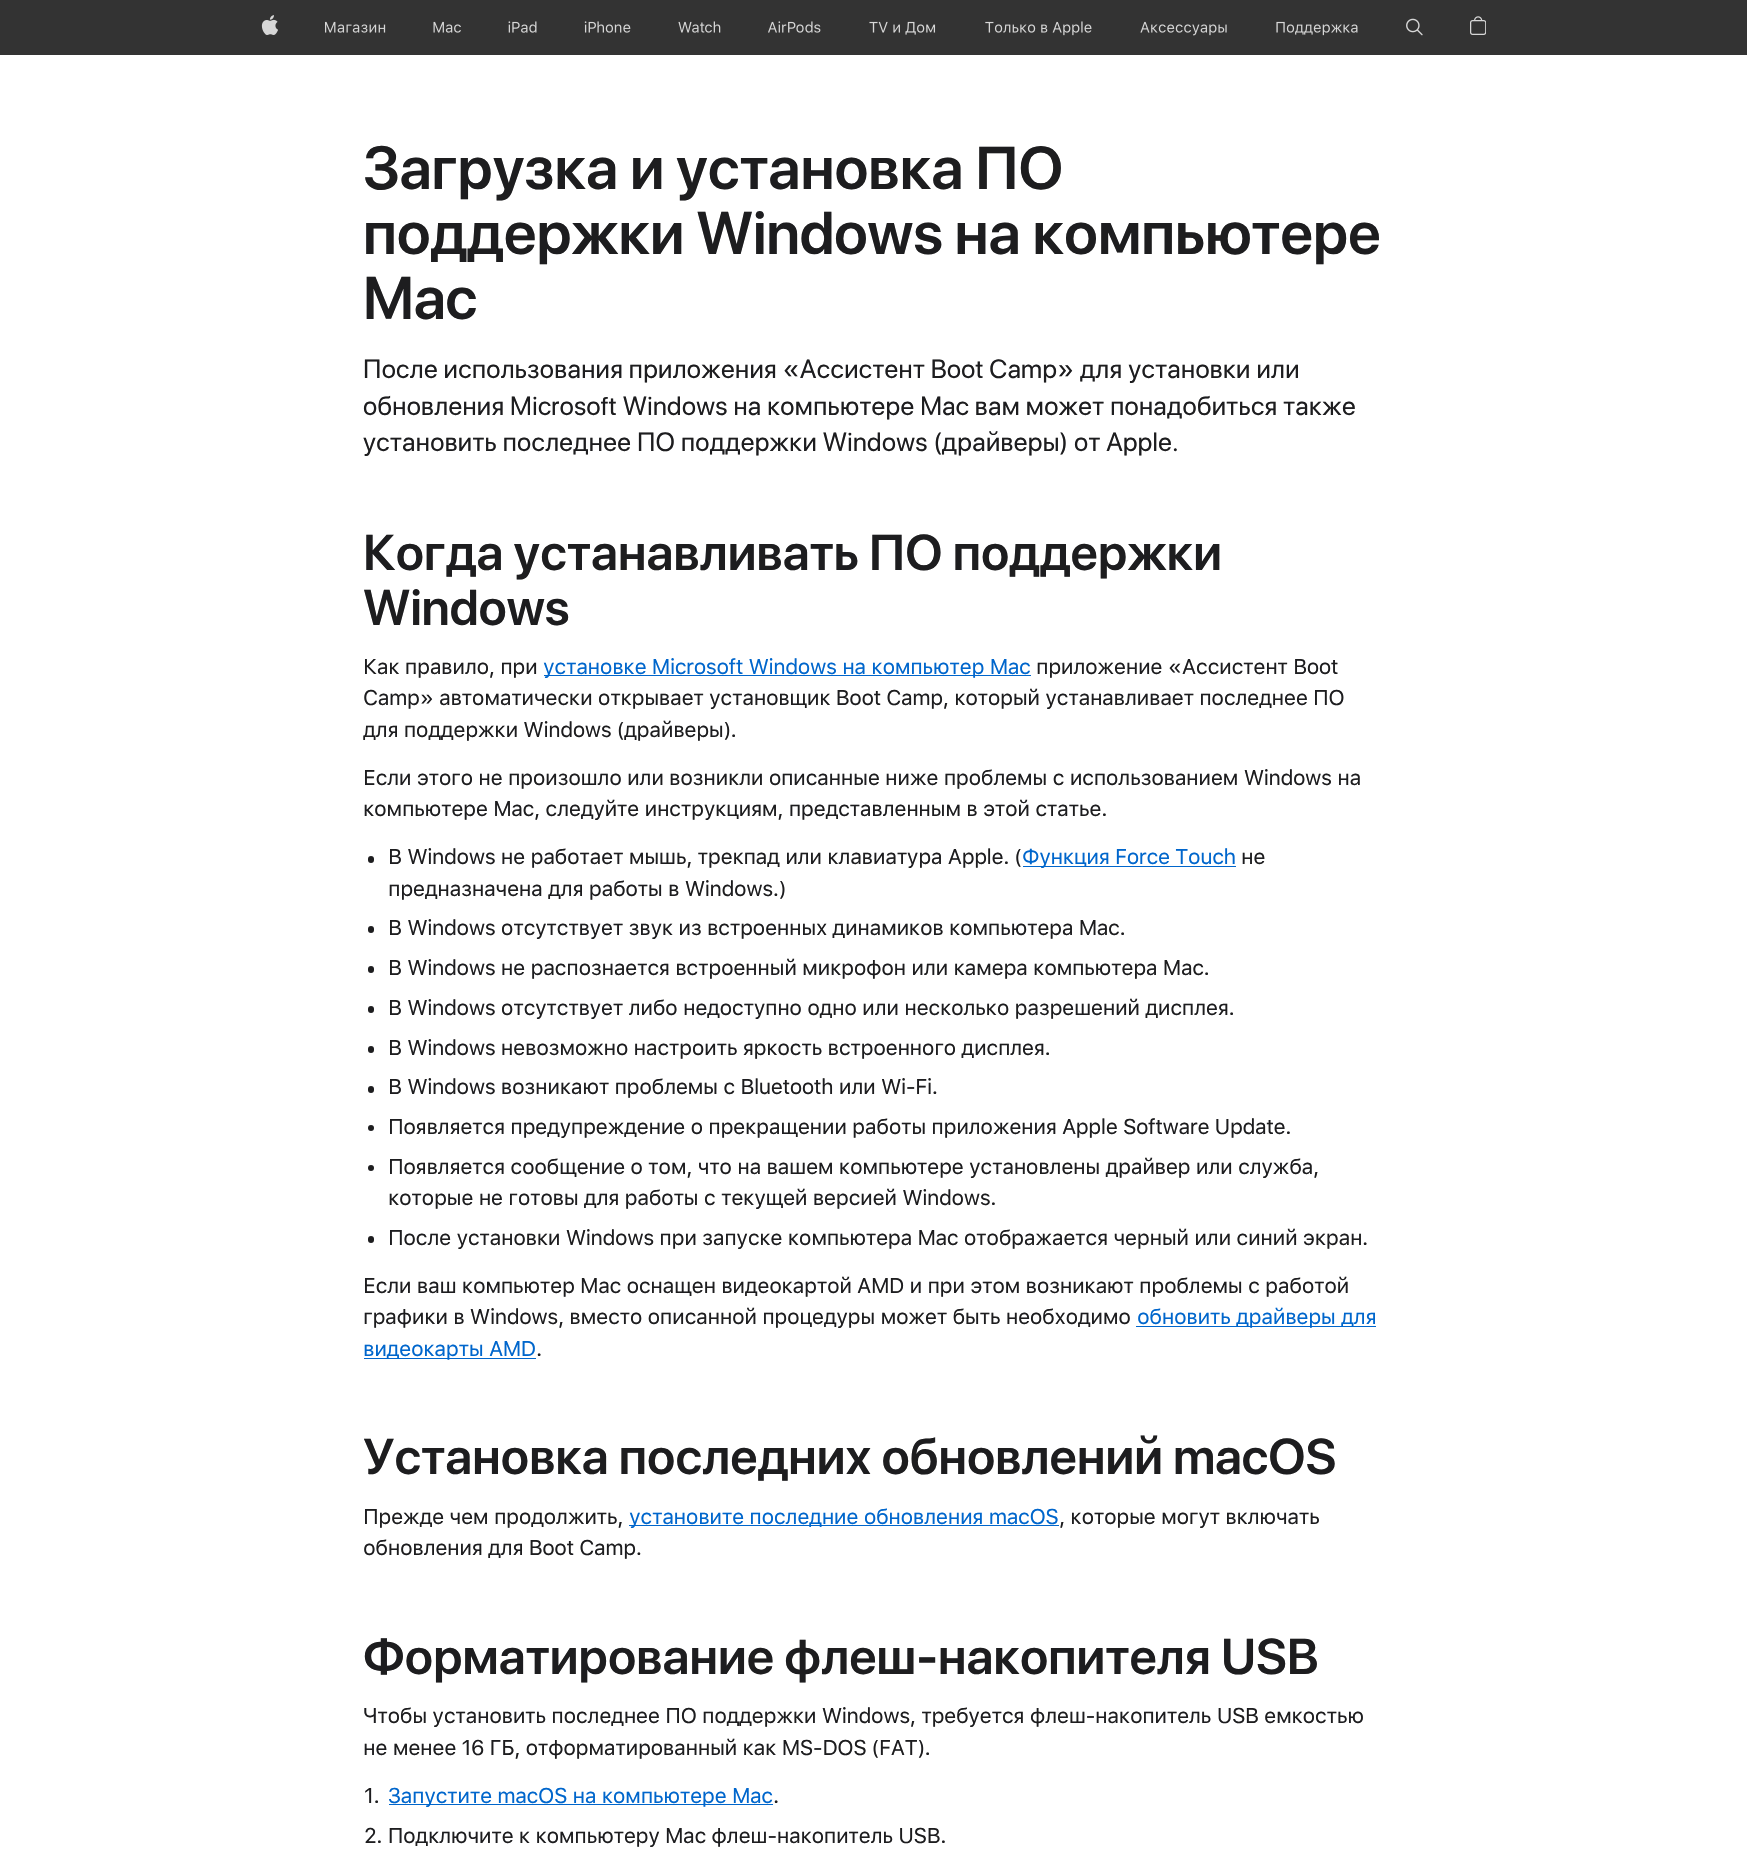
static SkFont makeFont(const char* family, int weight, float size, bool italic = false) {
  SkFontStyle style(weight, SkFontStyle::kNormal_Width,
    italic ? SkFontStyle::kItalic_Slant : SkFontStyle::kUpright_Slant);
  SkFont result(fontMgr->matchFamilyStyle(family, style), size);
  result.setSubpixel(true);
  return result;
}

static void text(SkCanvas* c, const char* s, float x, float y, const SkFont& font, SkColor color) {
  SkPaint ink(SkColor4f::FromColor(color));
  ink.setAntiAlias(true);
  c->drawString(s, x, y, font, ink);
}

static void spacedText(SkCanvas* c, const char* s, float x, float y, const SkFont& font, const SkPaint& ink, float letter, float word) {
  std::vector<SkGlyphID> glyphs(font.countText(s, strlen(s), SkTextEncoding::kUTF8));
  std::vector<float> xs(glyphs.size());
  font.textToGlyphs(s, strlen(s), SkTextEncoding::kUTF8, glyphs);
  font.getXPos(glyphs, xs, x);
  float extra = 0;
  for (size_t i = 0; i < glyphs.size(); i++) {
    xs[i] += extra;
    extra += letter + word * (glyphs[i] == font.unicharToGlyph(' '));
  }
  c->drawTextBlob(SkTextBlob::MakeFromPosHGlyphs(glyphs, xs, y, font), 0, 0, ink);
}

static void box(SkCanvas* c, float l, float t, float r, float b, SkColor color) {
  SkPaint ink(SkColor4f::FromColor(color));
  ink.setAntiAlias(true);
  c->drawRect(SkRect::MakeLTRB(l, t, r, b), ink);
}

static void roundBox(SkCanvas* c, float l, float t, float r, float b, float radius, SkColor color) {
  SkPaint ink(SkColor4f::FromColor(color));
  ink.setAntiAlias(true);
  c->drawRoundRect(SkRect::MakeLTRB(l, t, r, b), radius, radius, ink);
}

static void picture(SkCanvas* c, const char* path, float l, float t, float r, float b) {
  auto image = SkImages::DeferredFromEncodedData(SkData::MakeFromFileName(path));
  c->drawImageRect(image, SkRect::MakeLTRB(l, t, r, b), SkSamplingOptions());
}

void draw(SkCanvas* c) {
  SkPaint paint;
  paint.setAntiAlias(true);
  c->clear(0xffffffff);
  box(c, 0, 0, 1747, 55, 0xff333333);
  picture(c, "img_01.png", 261, 15, 278, 35);
  picture(c, "img_02.png", 325, 21, 386, 33);
  picture(c, "img_03.png", 433, 21, 461, 33);
  picture(c, "img_04.png", 508, 21, 537, 33);
  picture(c, "img_05.png", 584, 21, 631, 33);
  picture(c, "img_06.png", 678, 21, 721, 33);
  picture(c, "img_07.png", 768, 21, 821, 33);
  picture(c, "img_08.png", 869, 21, 936, 35);
  picture(c, "img_09.png", 985, 21, 1092, 36);
  picture(c, "img_10.png", 1140, 21, 1227, 36);
  picture(c, "img_11.png", 1276, 21, 1358, 36);
  picture(c, "img_12.png", 1406, 18, 1423, 36);
  picture(c, "img_13.png", 1470, 16, 1486, 35);
  SkFont face1 = makeFont("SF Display", 600, 60);
  paint.setColor(0xff1d1d1f);
  spacedText(c, "Загрузка и установка ПО", 363, 189, face1, paint, -0.2f, 0);
  spacedText(c, "поддержки Windows на компьютере", 363, 254, face1, paint, -0.2f, 0);
  spacedText(c, "Mac", 363, 319, face1, paint, -0.2f, 0);
  SkFont face2 = makeFont("SF Display", 400, 26.25f);
  spacedText(c, "После использования приложения «Ассистент Boot Camp» для установки или", 363, 378, face2, paint, 0.3f, 0);
  spacedText(c, "обновления Microsoft Windows на компьютере Mac вам может понадобиться также", 363, 415, face2, paint, 0.3f, 0);
  spacedText(c, "установить последнее ПО поддержки Windows (драйверы) от Apple.", 363, 451, face2, paint, 0.3f, 0);
  SkFont face3 = makeFont("SF Display", 600, 50);
  text(c, "Когда устанавливать ПО поддержки", 363, 570, face3, 0xff1d1d1f);
  text(c, "Windows", 363, 625, face3, 0xff1d1d1f);
  SkFont face4 = makeFont("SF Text", 400, 21.25f);
  spacedText(c, "Как правило, при", 363, 674, face4, paint, -0.47f, 0);
  box(c, 544, 675, 1031, 676, 0xff0066cc);
  paint.setColor(0xff0066cc);
  spacedText(c, "установке Microsoft Windows на компьютер Mac", 543, 674, face4, paint, -0.47f, 0);
  paint.setColor(0xff1d1d1f);
  spacedText(c, "приложение «Ассистент Boot", 1036, 674, face4, paint, -0.47f, 0);
  spacedText(c, "Camp» автоматически открывает установщик Boot Camp, который устанавливает последнее ПО", 363, 705, face4, paint, -0.47f, 0);
  spacedText(c, "для поддержки Windows (драйверы).", 363, 737, face4, paint, -0.47f, 0);
  spacedText(c, "Если этого не произошло или возникли описанные ниже проблемы с использованием Windows на", 363, 785, face4, paint, -0.47f, 0);
  spacedText(c, "компьютере Mac, следуйте инструкциям, представленным в этой статье.", 363, 816, face4, paint, -0.47f, 0);
  roundBox(c, 368, 856, 374, 863, 3, 0xff1d1d1f);
  spacedText(c, "В Windows не работает мышь, трекпад или клавиатура Apple. (", 388, 864, face4, paint, -0.47f, 0);
  box(c, 1023, 866, 1236, 867, 0xff0066cc);
  paint.setColor(0xff0066cc);
  spacedText(c, "Функция Force Touch", 1022, 864, face4, paint, -0.47f, 0);
  paint.setColor(0xff1d1d1f);
  spacedText(c, "не", 1241, 864, face4, paint, -0.47f, 0);
  spacedText(c, "предназначена для работы в Windows.)", 388, 896, face4, paint, -0.47f, 0);
  roundBox(c, 368, 926, 374, 933, 3, 0xff1d1d1f);
  spacedText(c, "В Windows отсутствует звук из встроенных динамиков компьютера Mac.", 388, 935, face4, paint, -0.47f, 0);
  roundBox(c, 368, 966, 374, 973, 3, 0xff1d1d1f);
  spacedText(c, "В Windows не распознается встроенный микрофон или камера компьютера Mac.", 388, 975, face4, paint, -0.47f, 0);
  roundBox(c, 368, 1006, 374, 1013, 3, 0xff1d1d1f);
  spacedText(c, "В Windows отсутствует либо недоступно одно или несколько разрешений дисплея.", 388, 1015, face4, paint, -0.47f, 0);
  roundBox(c, 368, 1046, 374, 1053, 3, 0xff1d1d1f);
  spacedText(c, "В Windows невозможно настроить яркость встроенного дисплея.", 388, 1055, face4, paint, -0.47f, 0);
  roundBox(c, 368, 1086, 374, 1093, 3, 0xff1d1d1f);
  spacedText(c, "В Windows возникают проблемы с Bluetooth или Wi-Fi.", 388, 1094, face4, paint, -0.47f, 0);
  c->drawCircle(371, 1128, 3, paint);
  spacedText(c, "Появляется предупреждение о прекращении работы приложения Apple Software Update.", 388, 1134, face4, paint, -0.47f, 0);
  c->drawCircle(371, 1168, 3, paint);
  spacedText(c, "Появляется сообщение о том, что на вашем компьютере установлены драйвер или служба,", 388, 1174, face4, paint, -0.47f, 0);
  spacedText(c, "которые не готовы для работы с текущей версией Windows.", 388, 1205, face4, paint, -0.47f, 0);
  roundBox(c, 368, 1236, 374, 1243, 3, 0xff1d1d1f);
  spacedText(c, "После установки Windows при запуске компьютера Mac отображается черный или синий экран.", 388, 1245, face4, paint, -0.47f, 0);
  spacedText(c, "Если ваш компьютер Mac оснащен видеокартой AMD и при этом возникают проблемы с работой", 363, 1293, face4, paint, -0.47f, 0);
  spacedText(c, "графики в Windows, вместо описанной процедуры может быть необходимо", 363, 1324, face4, paint, -0.47f, 0);
  box(c, 1136, 1326, 1376, 1327, 0xff0066cc);
  paint.setColor(0xff0066cc);
  spacedText(c, "обновить драйверы для", 1137, 1324, face4, paint, -0.47f, 0);
  box(c, 364, 1358, 536, 1359, 0xff0066cc);
  spacedText(c, "видеокарты AMD", 363, 1356, face4, paint, -0.47f, 0);
  paint.setColor(0xff1d1d1f);
  spacedText(c, ".", 536, 1356, face4, paint, -0.47f, 0);
  text(c, "Установка последних обновлений macOS", 363, 1474, face3, 0xff1d1d1f);
  spacedText(c, "Прежде чем продолжить,", 363, 1524, face4, paint, -0.47f, 0);
  box(c, 629, 1525, 1059, 1526, 0xff0066cc);
  paint.setColor(0xff0066cc);
  spacedText(c, "установите последние обновления macOS", 629, 1524, face4, paint, -0.47f, 0);
  paint.setColor(0xff1d1d1f);
  spacedText(c, ", которые могут включать", 1059, 1524, face4, paint, -0.47f, 0);
  spacedText(c, "обновления для Boot Camp.", 363, 1555, face4, paint, -0.47f, 0);
  text(c, "Форматирование флеш-накопителя USB", 363, 1674, face3, 0xff1d1d1f);
  spacedText(c, "Чтобы установить последнее ПО поддержки Windows, требуется флеш-накопитель USB емкостью", 363, 1723, face4, paint, -0.47f, 0);
  spacedText(c, "не менее 16 ГБ, отформатированный как MS-DOS (FAT).", 363, 1755, face4, paint, -0.47f, 0);
  spacedText(c, "1.", 364, 1803, face4, paint, -0.47f, 0);
  box(c, 389, 1804, 773, 1805, 0xff0066cc);
  paint.setColor(0xff0066cc);
  spacedText(c, "Запустите macOS на компьютере Mac", 388, 1803, face4, paint, -0.47f, 0);
  paint.setColor(0xff1d1d1f);
  spacedText(c, ".", 773, 1803, face4, paint, -0.47f, 0);
  spacedText(c, "2. Подключите к компьютеру Mac флеш-накопитель USB.", 364, 1843, face4, paint, -0.47f, 0);
}
